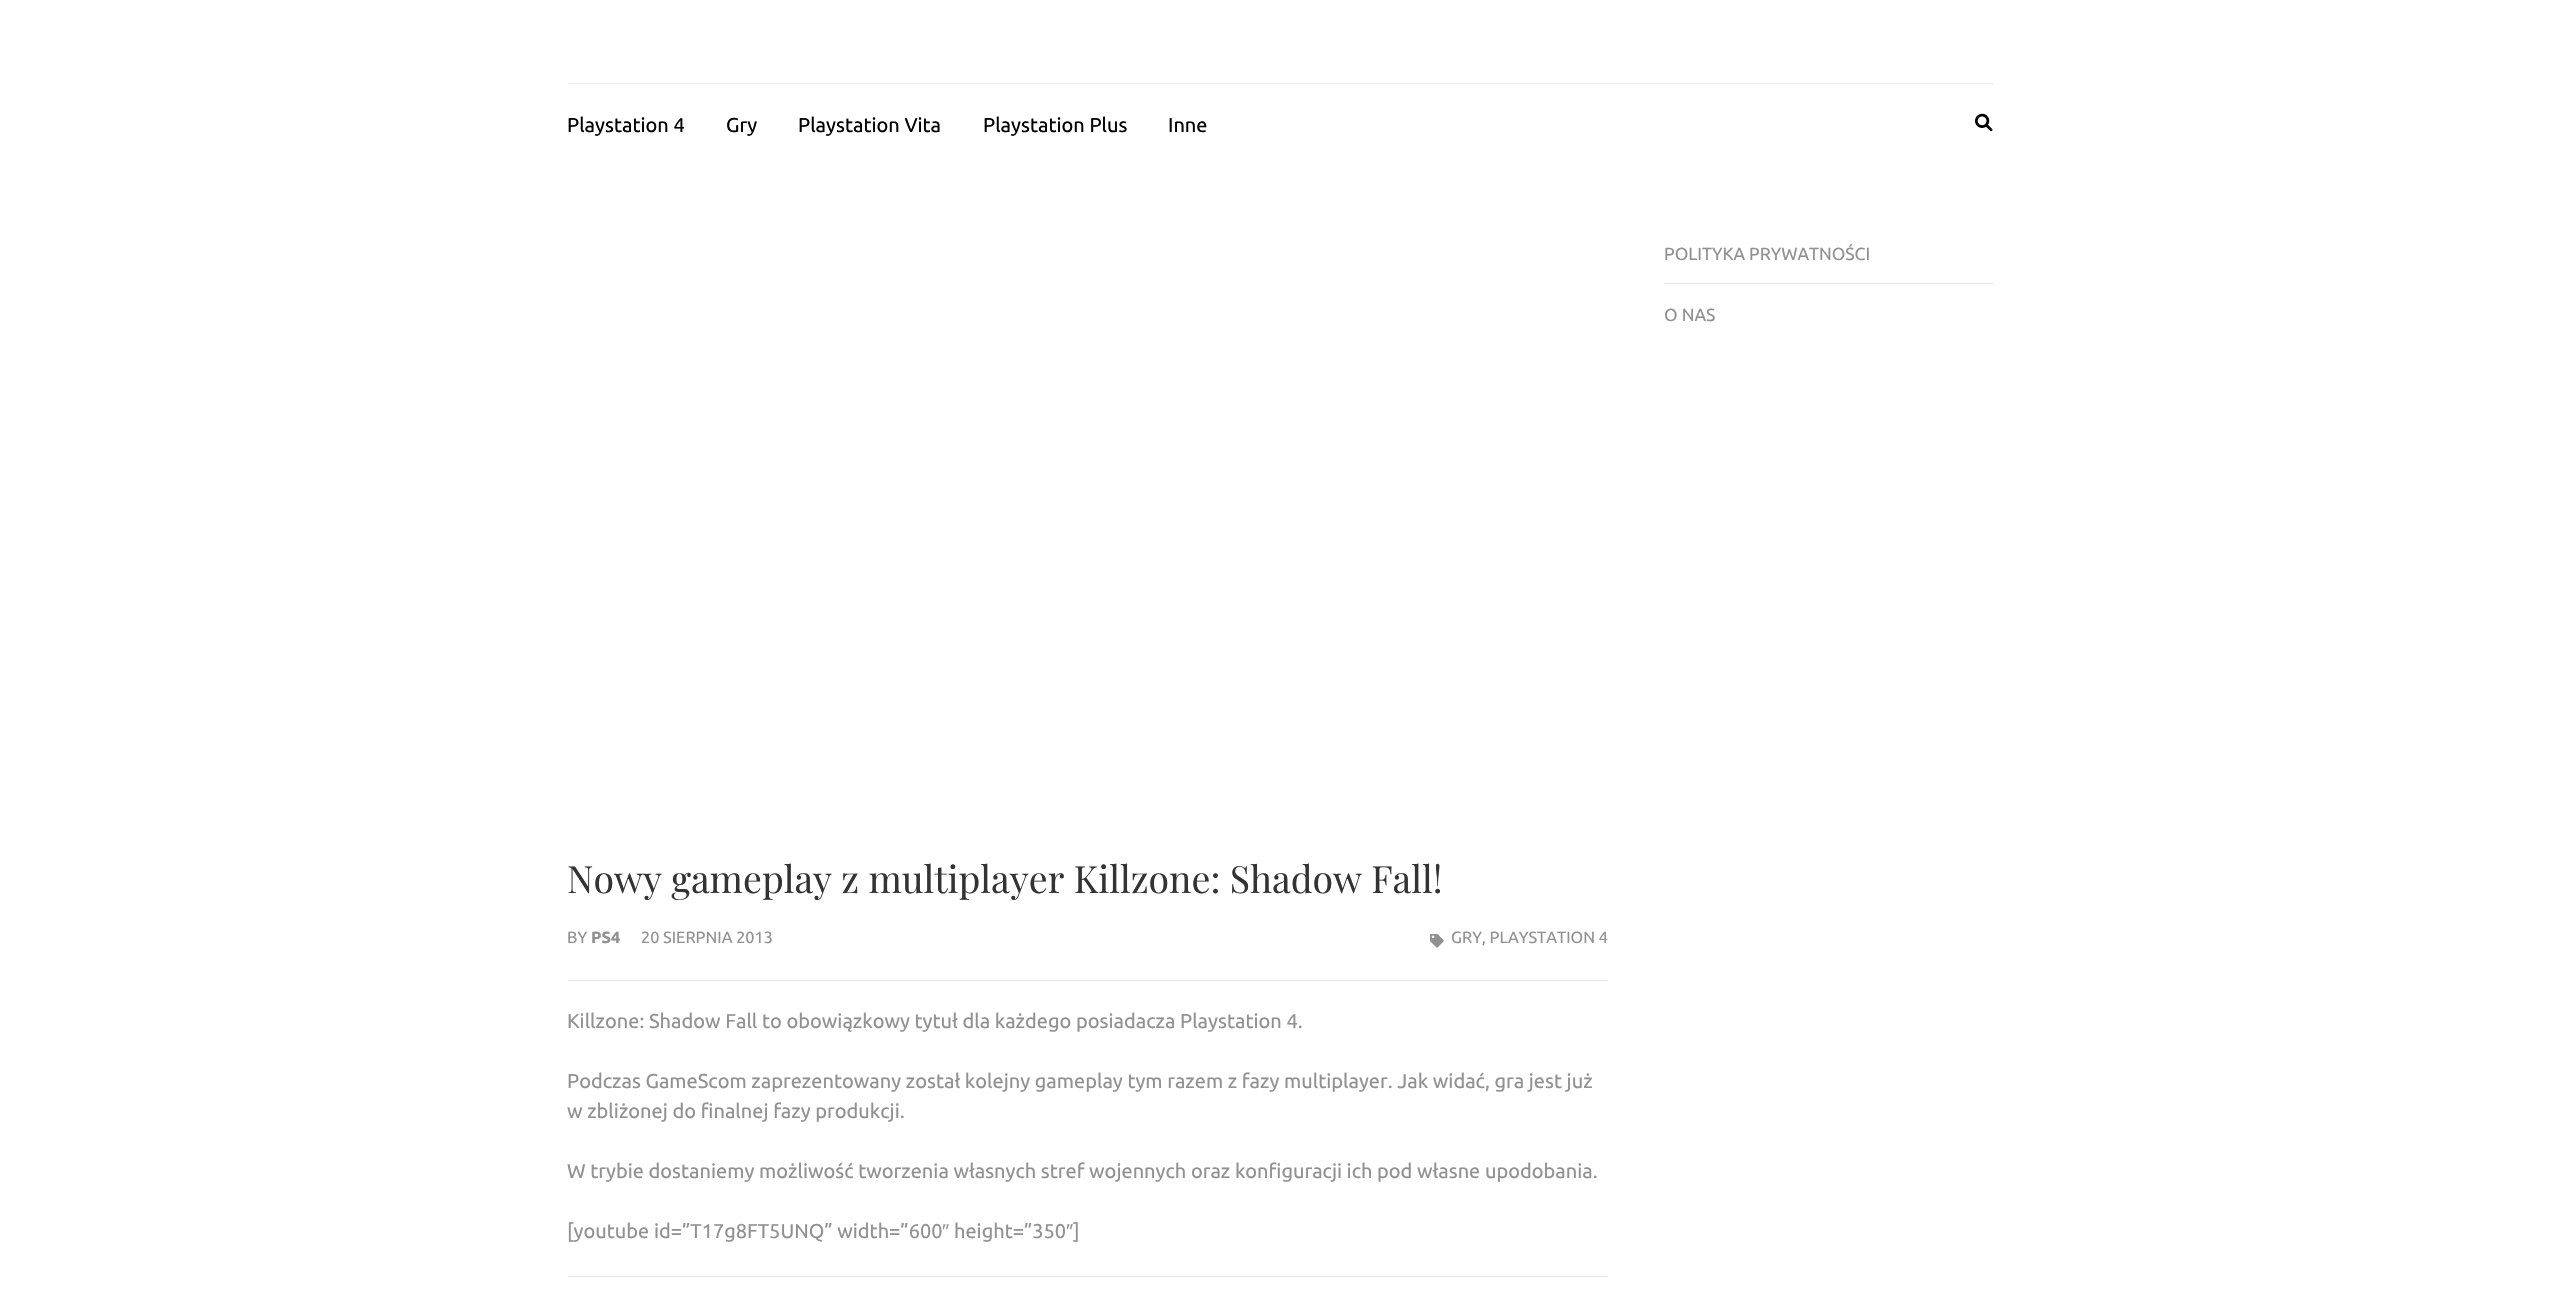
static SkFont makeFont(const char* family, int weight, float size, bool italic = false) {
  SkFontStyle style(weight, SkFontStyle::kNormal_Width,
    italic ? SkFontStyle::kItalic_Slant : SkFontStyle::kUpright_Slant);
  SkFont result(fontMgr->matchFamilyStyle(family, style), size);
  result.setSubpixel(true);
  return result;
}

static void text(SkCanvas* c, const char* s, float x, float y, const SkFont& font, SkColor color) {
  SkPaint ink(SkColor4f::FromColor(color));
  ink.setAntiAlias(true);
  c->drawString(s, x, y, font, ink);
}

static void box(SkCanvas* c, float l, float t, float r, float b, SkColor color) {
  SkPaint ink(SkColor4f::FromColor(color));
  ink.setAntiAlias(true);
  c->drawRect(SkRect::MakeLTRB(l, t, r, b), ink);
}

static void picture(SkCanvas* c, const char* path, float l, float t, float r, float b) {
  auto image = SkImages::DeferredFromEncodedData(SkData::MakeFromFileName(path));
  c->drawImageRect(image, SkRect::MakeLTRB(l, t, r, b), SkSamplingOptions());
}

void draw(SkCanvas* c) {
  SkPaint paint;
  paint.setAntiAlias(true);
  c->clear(0xffffffff);
  box(c, 568, 83, 1993, 84, 0xffebebeb);
  SkFont face1 = makeFont("Ubuntu", 400, 20);
  text(c, "Playstation 4", 567, 132, face1, 0xff000000);
  text(c, "Gry", 726, 132, face1, 0xff000000);
  text(c, "Playstation Vita", 798, 132, face1, 0xff000000);
  text(c, "Playstation Plus", 983, 132, face1, 0xff000000);
  text(c, "Inne", 1168, 132, face1, 0xff000000);
  picture(c, "img_01.png", 1975, 113, 1993, 132);
  box(c, 1664, 283, 1993, 284, 0xffe3e3e3);
  SkFont face2 = makeFont("Ubuntu", 400, 17.5f);
  text(c, "POLITYKA PRYWATNOŚCI", 1664, 260, face2, 0xff919191);
  text(c, "O NAS", 1664, 321, face2, 0xff919191);
  box(c, 568, 980, 1608, 981, 0xffe3e3e3);
  SkFont face3 = makeFont("Playfair Display", 400, 37.5f);
  text(c, "Nowy gameplay z multiplayer Killzone: Shadow Fall!", 567, 893, face3, 0xff333333);
  SkFont face4 = makeFont("Ubuntu", 400, 16.25f);
  text(c, "BY", 567, 943, face4, 0xff919191);
  SkFont face5 = makeFont("Ubuntu", 700, 16.25f);
  text(c, "PS4", 591, 943, face5, 0xff919191);
  text(c, "20 SIERPNIA 2013", 641, 943, face4, 0xff919191);
  picture(c, "img_02.png", 1430, 934, 1444, 948);
  text(c, "GRY, PLAYSTATION 4", 1451, 943, face4, 0xff919191);
  text(c, "Killzone: Shadow Fall to obowiązkowy tytuł dla każdego posiadacza Playstation 4.", 567, 1028, face1, 0xff919191);
  text(c, "Podczas GameScom zaprezentowany został kolejny gameplay tym razem z fazy multiplayer. Jak widać, gra jest już", 567, 1088, face1, 0xff919191);
  text(c, "w zbliżonej do finalnej fazy produkcji.", 567, 1118, face1, 0xff919191);
  text(c, "W trybie dostaniemy możliwość tworzenia własnych stref wojennych oraz konfiguracji ich pod własne upodobania.", 567, 1178, face1, 0xff919191);
  text(c, "[youtube id=”T17g8FT5UNQ” width=”600", 567, 1238, face1, 0xff919191);
  SkFont face6 = makeFont("Liberation Sans", 400, 20);
  text(c, "″", 942, 1238, face6, 0xff919191);
  text(c, "height=”350", 954, 1238, face1, 0xff919191);
  text(c, "″", 1066, 1238, face6, 0xff919191);
  text(c, "]", 1073, 1238, face1, 0xff919191);
  box(c, 568, 1276, 1608, 1277, 0xffe3e3e3);
}
